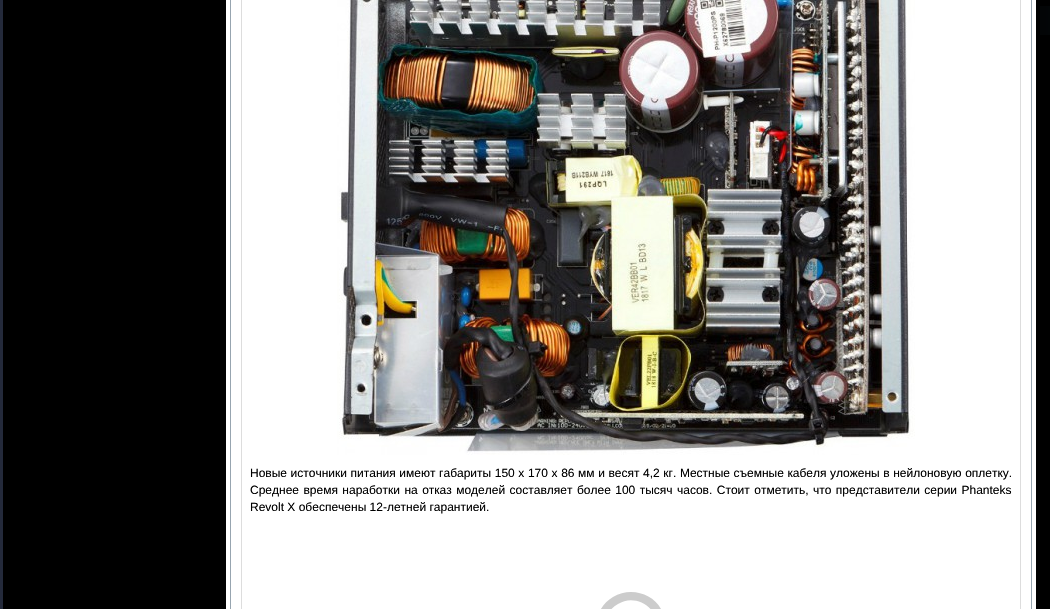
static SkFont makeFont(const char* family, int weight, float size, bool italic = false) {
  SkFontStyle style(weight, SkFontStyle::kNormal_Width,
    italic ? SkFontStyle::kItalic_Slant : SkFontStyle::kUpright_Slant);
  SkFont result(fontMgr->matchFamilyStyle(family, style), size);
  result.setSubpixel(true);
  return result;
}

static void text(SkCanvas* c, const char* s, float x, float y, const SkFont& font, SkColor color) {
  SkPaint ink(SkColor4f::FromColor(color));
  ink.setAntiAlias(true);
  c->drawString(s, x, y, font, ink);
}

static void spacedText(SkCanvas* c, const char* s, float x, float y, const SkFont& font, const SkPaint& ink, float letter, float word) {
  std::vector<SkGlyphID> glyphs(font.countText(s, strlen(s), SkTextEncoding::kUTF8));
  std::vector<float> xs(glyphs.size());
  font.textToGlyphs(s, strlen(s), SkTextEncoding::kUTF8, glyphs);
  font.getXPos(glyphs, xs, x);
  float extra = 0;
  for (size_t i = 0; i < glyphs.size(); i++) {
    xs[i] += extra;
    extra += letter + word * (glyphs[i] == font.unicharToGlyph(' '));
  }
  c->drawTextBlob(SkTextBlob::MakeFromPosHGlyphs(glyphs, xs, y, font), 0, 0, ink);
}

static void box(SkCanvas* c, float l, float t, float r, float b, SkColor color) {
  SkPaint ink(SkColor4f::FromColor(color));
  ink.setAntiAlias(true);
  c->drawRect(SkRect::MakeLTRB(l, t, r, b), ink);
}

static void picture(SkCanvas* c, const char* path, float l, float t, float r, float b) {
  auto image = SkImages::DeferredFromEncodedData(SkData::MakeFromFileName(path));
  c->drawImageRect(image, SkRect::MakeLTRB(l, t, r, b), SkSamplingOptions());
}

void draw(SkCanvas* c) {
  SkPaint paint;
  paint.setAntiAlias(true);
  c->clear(0xff000000);
  box(c, 0, 0, 3, 609, 0xff242a3b);
  picture(c, "img_01.png", 1040, 6, 1050, 35);
  box(c, 226, 0, 1036, 609, 0xffffffff);
  paint.setStyle(SkPaint::kStroke_Style);
  paint.setStrokeWidth(1);
  paint.setColor(0xff97a5b0);
  c->drawRect(SkRect::MakeLTRB(230.5f, -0.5f, 1031.5f, 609.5f), paint);
  paint.setColor(0xffdddddd);
  c->drawRect(SkRect::MakeLTRB(241.5f, -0.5f, 1020.5f, 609.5f), paint);
  picture(c, "img_02.png", 337, 0, 915, 455);
  SkFont face1 = makeFont("Liberation Sans", 400, 12);
  paint.setStyle(SkPaint::kFill_Style);
  paint.setColor(0xff000000);
  spacedText(c, "Новые источники питания имеют габариты 150 х 170 х 86 мм и весят 4,2 кг. Местные съемные кабеля уложены в нейлоновую оплетку.", 250, 477, face1, paint, 0, 0.25f);
  spacedText(c, "Среднее время наработки на отказ моделей составляет более 100 тысяч часов. Стоит отметить, что представители серии Phanteks", 250, 494, face1, paint, 0, 1.1f);
  text(c, "Revolt X обеспечены 12-летней гарантией.", 250, 511, face1, 0xff000000);
  paint.setColor(0xffcccccc);
  c->drawPath(SkPathBuilder().moveTo(661, 609).cubicTo(652, 593, 630, 587, 613, 597).cubicTo(597, 606, 591, 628, 601, 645).lineTo(608, 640).cubicTo(600, 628, 605, 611, 618, 604).cubicTo(630, 596, 647, 601, 654, 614).close().detach(), paint);
}
